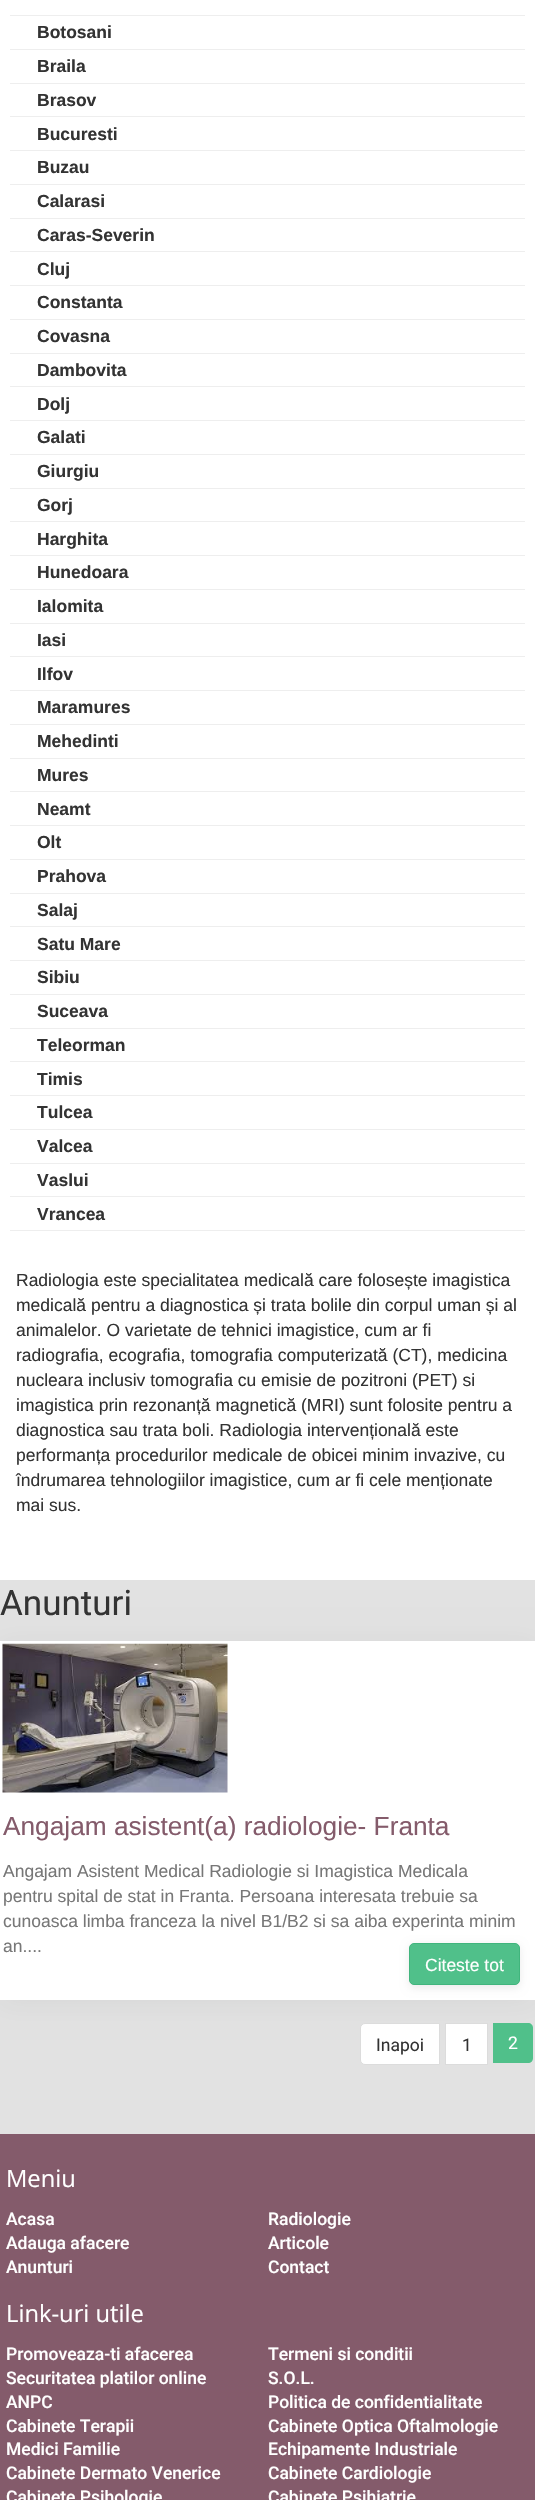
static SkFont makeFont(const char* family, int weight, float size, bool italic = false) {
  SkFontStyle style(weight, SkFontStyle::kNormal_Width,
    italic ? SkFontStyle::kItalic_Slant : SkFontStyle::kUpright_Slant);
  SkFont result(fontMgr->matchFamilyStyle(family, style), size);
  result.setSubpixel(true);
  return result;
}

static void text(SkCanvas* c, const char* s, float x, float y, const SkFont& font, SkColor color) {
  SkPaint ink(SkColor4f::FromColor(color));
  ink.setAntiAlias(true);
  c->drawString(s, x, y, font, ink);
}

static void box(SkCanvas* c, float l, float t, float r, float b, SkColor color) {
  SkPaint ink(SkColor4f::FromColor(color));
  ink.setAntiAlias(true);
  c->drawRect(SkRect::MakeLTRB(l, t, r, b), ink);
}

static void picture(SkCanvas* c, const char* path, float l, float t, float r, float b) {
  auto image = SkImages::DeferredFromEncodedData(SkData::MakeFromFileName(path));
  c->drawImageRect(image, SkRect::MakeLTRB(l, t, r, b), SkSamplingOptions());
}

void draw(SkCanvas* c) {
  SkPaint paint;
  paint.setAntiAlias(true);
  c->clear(0xffe2e2e2);
  box(c, 0, 0, 535, 1580, 0xffffffff);
  box(c, 10, 15, 525, 16, 0xffeeeeee);
  box(c, 10, 49, 525, 50, 0xffeeeeee);
  SkFont face1 = makeFont("Liberation Sans", 700, 17.5f);
  text(c, "Botosani", 37, 38, face1, 0xff333333);
  box(c, 10, 83, 525, 84, 0xffeeeeee);
  text(c, "Braila", 37, 72, face1, 0xff333333);
  box(c, 10, 116, 525, 117, 0xffeeeeee);
  text(c, "Brasov", 37, 106, face1, 0xff333333);
  box(c, 10, 150, 525, 151, 0xffeeeeee);
  text(c, "Bucuresti", 37, 140, face1, 0xff333333);
  box(c, 10, 184, 525, 185, 0xffeeeeee);
  text(c, "Buzau", 37, 173, face1, 0xff333333);
  box(c, 10, 218, 525, 219, 0xffeeeeee);
  text(c, "Calarasi", 37, 207, face1, 0xff333333);
  box(c, 10, 251, 525, 252, 0xffeeeeee);
  text(c, "Caras-Severin", 37, 241, face1, 0xff333333);
  box(c, 10, 285, 525, 286, 0xffeeeeee);
  text(c, "Cluj", 37, 275, face1, 0xff333333);
  box(c, 10, 319, 525, 320, 0xffeeeeee);
  text(c, "Constanta", 37, 308, face1, 0xff333333);
  box(c, 10, 353, 525, 354, 0xffeeeeee);
  text(c, "Covasna", 37, 342, face1, 0xff333333);
  box(c, 10, 386, 525, 387, 0xffeeeeee);
  text(c, "Dambovita", 37, 376, face1, 0xff333333);
  box(c, 10, 420, 525, 421, 0xffeeeeee);
  text(c, "Dolj", 37, 410, face1, 0xff333333);
  box(c, 10, 454, 525, 455, 0xffeeeeee);
  text(c, "Galati", 37, 443, face1, 0xff333333);
  box(c, 10, 488, 525, 489, 0xffeeeeee);
  text(c, "Giurgiu", 37, 477, face1, 0xff333333);
  box(c, 10, 521, 525, 522, 0xffeeeeee);
  text(c, "Gorj", 37, 511, face1, 0xff333333);
  box(c, 10, 555, 525, 556, 0xffeeeeee);
  text(c, "Harghita", 37, 545, face1, 0xff333333);
  box(c, 10, 589, 525, 590, 0xffeeeeee);
  text(c, "Hunedoara", 37, 578, face1, 0xff333333);
  box(c, 10, 623, 525, 624, 0xffeeeeee);
  text(c, "Ialomita", 37, 612, face1, 0xff333333);
  box(c, 10, 656, 525, 657, 0xffeeeeee);
  text(c, "Iasi", 37, 646, face1, 0xff333333);
  box(c, 10, 690, 525, 691, 0xffeeeeee);
  text(c, "Ilfov", 37, 680, face1, 0xff333333);
  box(c, 10, 724, 525, 725, 0xffeeeeee);
  text(c, "Maramures", 37, 713, face1, 0xff333333);
  box(c, 10, 758, 525, 759, 0xffeeeeee);
  text(c, "Mehedinti", 37, 747, face1, 0xff333333);
  box(c, 10, 791, 525, 792, 0xffeeeeee);
  text(c, "Mures", 37, 781, face1, 0xff333333);
  box(c, 10, 825, 525, 826, 0xffeeeeee);
  text(c, "Neamt", 37, 815, face1, 0xff333333);
  box(c, 10, 859, 525, 860, 0xffeeeeee);
  text(c, "Olt", 37, 848, face1, 0xff333333);
  box(c, 10, 893, 525, 894, 0xffeeeeee);
  text(c, "Prahova", 37, 882, face1, 0xff333333);
  box(c, 10, 926, 525, 927, 0xffeeeeee);
  text(c, "Salaj", 37, 916, face1, 0xff333333);
  box(c, 10, 960, 525, 961, 0xffeeeeee);
  text(c, "Satu Mare", 37, 950, face1, 0xff333333);
  box(c, 10, 994, 525, 995, 0xffeeeeee);
  text(c, "Sibiu", 37, 983, face1, 0xff333333);
  box(c, 10, 1028, 525, 1029, 0xffeeeeee);
  text(c, "Suceava", 37, 1017, face1, 0xff333333);
  box(c, 10, 1061, 525, 1062, 0xffeeeeee);
  text(c, "Teleorman", 37, 1051, face1, 0xff333333);
  box(c, 10, 1095, 525, 1096, 0xffeeeeee);
  text(c, "Timis", 37, 1085, face1, 0xff333333);
  box(c, 10, 1129, 525, 1130, 0xffeeeeee);
  text(c, "Tulcea", 37, 1118, face1, 0xff333333);
  box(c, 10, 1163, 525, 1164, 0xffeeeeee);
  text(c, "Valcea", 37, 1152, face1, 0xff333333);
  box(c, 10, 1196, 525, 1197, 0xffeeeeee);
  text(c, "Vaslui", 37, 1186, face1, 0xff333333);
  box(c, 10, 1230, 525, 1231, 0xffeeeeee);
  text(c, "Vrancea", 37, 1220, face1, 0xff333333);
  SkFont face2 = makeFont("Liberation Sans", 400, 17.5f);
  text(c, "Radiologia este specialitatea medicală care folosește imagistica", 16, 1286, face2, 0xff333333);
  text(c, "medicală pentru a diagnostica și trata bolile din corpul uman și al", 16, 1311, face2, 0xff333333);
  text(c, "animalelor. O varietate de tehnici imagistice, cum ar fi", 16, 1336, face2, 0xff333333);
  text(c, "radiografia, ecografia, tomografia computerizată (CT), medicina", 16, 1361, face2, 0xff333333);
  text(c, "nucleara inclusiv tomografia cu emisie de pozitroni (PET) si", 16, 1386, face2, 0xff333333);
  text(c, "imagistica prin rezonanță magnetică (MRI) sunt folosite pentru a", 16, 1411, face2, 0xff333333);
  text(c, "diagnostica sau trata boli. Radiologia intervențională este", 16, 1436, face2, 0xff333333);
  text(c, "performanța procedurilor medicale de obicei minim invazive, cu", 16, 1461, face2, 0xff333333);
  text(c, "îndrumarea tehnologiilor imagistice, cum ar fi cele menționate", 16, 1486, face2, 0xff333333);
  text(c, "mai sus.", 16, 1511, face2, 0xff333333);
  SkFont face3 = makeFont("Roboto", 400, 35);
  text(c, "Anunturi", 0, 1615, face3, 0xff333333);
  paint.setColor(0x0d000000);
  paint.setMaskFilter(SkMaskFilter::MakeBlur(kNormal_SkBlurStyle, 12.5f));
  c->drawRect(SkRect::MakeLTRB(0, 1644, 535, 2003), paint);
  paint.setMaskFilter(nullptr);
  box(c, 0, 1641, 535, 2000, 0xffffffff);
  picture(c, "img_01.png", 2, 1643, 228, 1793);
  SkFont face4 = makeFont("Liberation Sans", 400, 26.25f);
  text(c, "Angajam asistent(a) radiologie- Franta", 3, 1835, face4, 0xff845b6b);
  text(c, "Angajam Asistent Medical Radiologie si Imagistica Medicala", 3, 1877, face2, 0xff777777);
  text(c, "pentru spital de stat in Franta. Persoana interesata trebuie sa", 3, 1902, face2, 0xff777777);
  text(c, "cunoasca limba franceza la nivel B1/B2 si sa aiba experinta minim", 3, 1927, face2, 0xff777777);
  text(c, "an....", 3, 1952, face2, 0xff777777);
  paint.setColor(0x14000000);
  paint.setMaskFilter(SkMaskFilter::MakeBlur(kNormal_SkBlurStyle, 4));
  c->drawRoundRect(SkRect::MakeLTRB(409, 1945, 520, 1988), 5, 5, paint);
  paint.setMaskFilter(nullptr);
  paint.setColor(0xff50c08a);
  c->drawRoundRect(SkRect::MakeLTRB(409.5f, 1943.5f, 519.5f, 1984.5f), 4.5f, 4.5f, paint);
  paint.setStyle(SkPaint::kStroke_Style);
  paint.setStrokeWidth(1);
  paint.setColor(0xff41b57d);
  c->drawRoundRect(SkRect::MakeLTRB(409.5f, 1943.5f, 519.5f, 1984.5f), 4.5f, 4.5f, paint);
  text(c, "Citeste tot", 425, 1971, face2, 0xffffffff);
  paint.setStyle(SkPaint::kFill_Style);
  paint.setColor(0xffffffff);
  c->drawPath(SkPathBuilder().moveTo(365, 2023.5f).lineTo(439.5f, 2023.5f).lineTo(439.5f, 2064.5f).lineTo(365, 2064.5f).cubicTo(362.5f, 2064.5f, 360.5f, 2062.5f, 360.5f, 2060).lineTo(360.5f, 2028).cubicTo(360.5f, 2025.5f, 362.5f, 2023.5f, 365, 2023.5f).close().detach(), paint);
  paint.setStyle(SkPaint::kStroke_Style);
  paint.setColor(0xffdcdcdc);
  c->drawPath(SkPathBuilder().moveTo(365, 2023.5f).lineTo(439.5f, 2023.5f).lineTo(439.5f, 2064.5f).lineTo(365, 2064.5f).cubicTo(362.5f, 2064.5f, 360.5f, 2062.5f, 360.5f, 2060).lineTo(360.5f, 2028).cubicTo(360.5f, 2025.5f, 362.5f, 2023.5f, 365, 2023.5f).close().detach(), paint);
  SkFont face5 = makeFont("Roboto", 400, 17.5f);
  text(c, "Inapoi", 376, 2051, face5, 0xff333333);
  paint.setStyle(SkPaint::kFill_Style);
  paint.setColor(0xffffffff);
  c->drawRect(SkRect::MakeLTRB(445.5f, 2023.5f, 487.5f, 2064.5f), paint);
  paint.setStyle(SkPaint::kStroke_Style);
  paint.setColor(0xffdcdcdc);
  c->drawRect(SkRect::MakeLTRB(445.5f, 2023.5f, 487.5f, 2064.5f), paint);
  text(c, "1", 462, 2051, face5, 0xff333333);
  paint.setStyle(SkPaint::kFill_Style);
  paint.setColor(0xff50c08a);
  c->drawPath(SkPathBuilder().moveTo(493, 2023).lineTo(528, 2023).cubicTo(531, 2023, 533, 2025, 533, 2028).lineTo(533, 2058).cubicTo(533, 2061, 531, 2063, 528, 2063).lineTo(493, 2063).close().detach(), paint);
  text(c, "2", 508, 2049, face5, 0xffffffff);
  box(c, 0, 2134, 535, 2500, 0xff845b6b);
  SkFont face6 = makeFont("Open Sans", 400, 23.75f);
  text(c, "Meniu", 6, 2187, face6, 0xffffffff);
  SkFont face7 = makeFont("Roboto", 500, 17.5f);
  text(c, "Acasa", 6, 2225, face7, 0xffffffff);
  text(c, "Radiologie", 268, 2225, face7, 0xffffffff);
  text(c, "Adauga afacere", 6, 2249, face7, 0xffffffff);
  text(c, "Articole", 268, 2249, face7, 0xffffffff);
  text(c, "Anunturi", 6, 2273, face7, 0xffffffff);
  text(c, "Contact", 268, 2273, face7, 0xffffffff);
  text(c, "Link-uri utile", 6, 2322, face6, 0xffffffff);
  text(c, "Promoveaza-ti afacerea", 6, 2360, face7, 0xffffffff);
  text(c, "Termeni si conditii", 268, 2360, face7, 0xffffffff);
  text(c, "Securitatea platilor online", 6, 2384, face7, 0xffffffff);
  text(c, "S.O.L.", 268, 2384, face7, 0xffffffff);
  text(c, "ANPC", 6, 2408, face7, 0xffffffff);
  text(c, "Politica de confidentialitate", 268, 2408, face7, 0xffffffff);
  text(c, "Cabinete Terapii", 6, 2432, face7, 0xffffffff);
  text(c, "Cabinete Optica Oftalmologie", 268, 2432, face7, 0xffffffff);
  text(c, "Medici Familie", 6, 2455, face7, 0xffffffff);
  text(c, "Echipamente Industriale", 268, 2455, face7, 0xffffffff);
  text(c, "Cabinete Dermato Venerice", 6, 2479, face7, 0xffffffff);
  text(c, "Cabinete Cardiologie", 268, 2479, face7, 0xffffffff);
  text(c, "Cabinete Psihologie", 6, 2503, face7, 0xffffffff);
  text(c, "Cabinete Psihiatrie", 268, 2503, face7, 0xffffffff);
}
